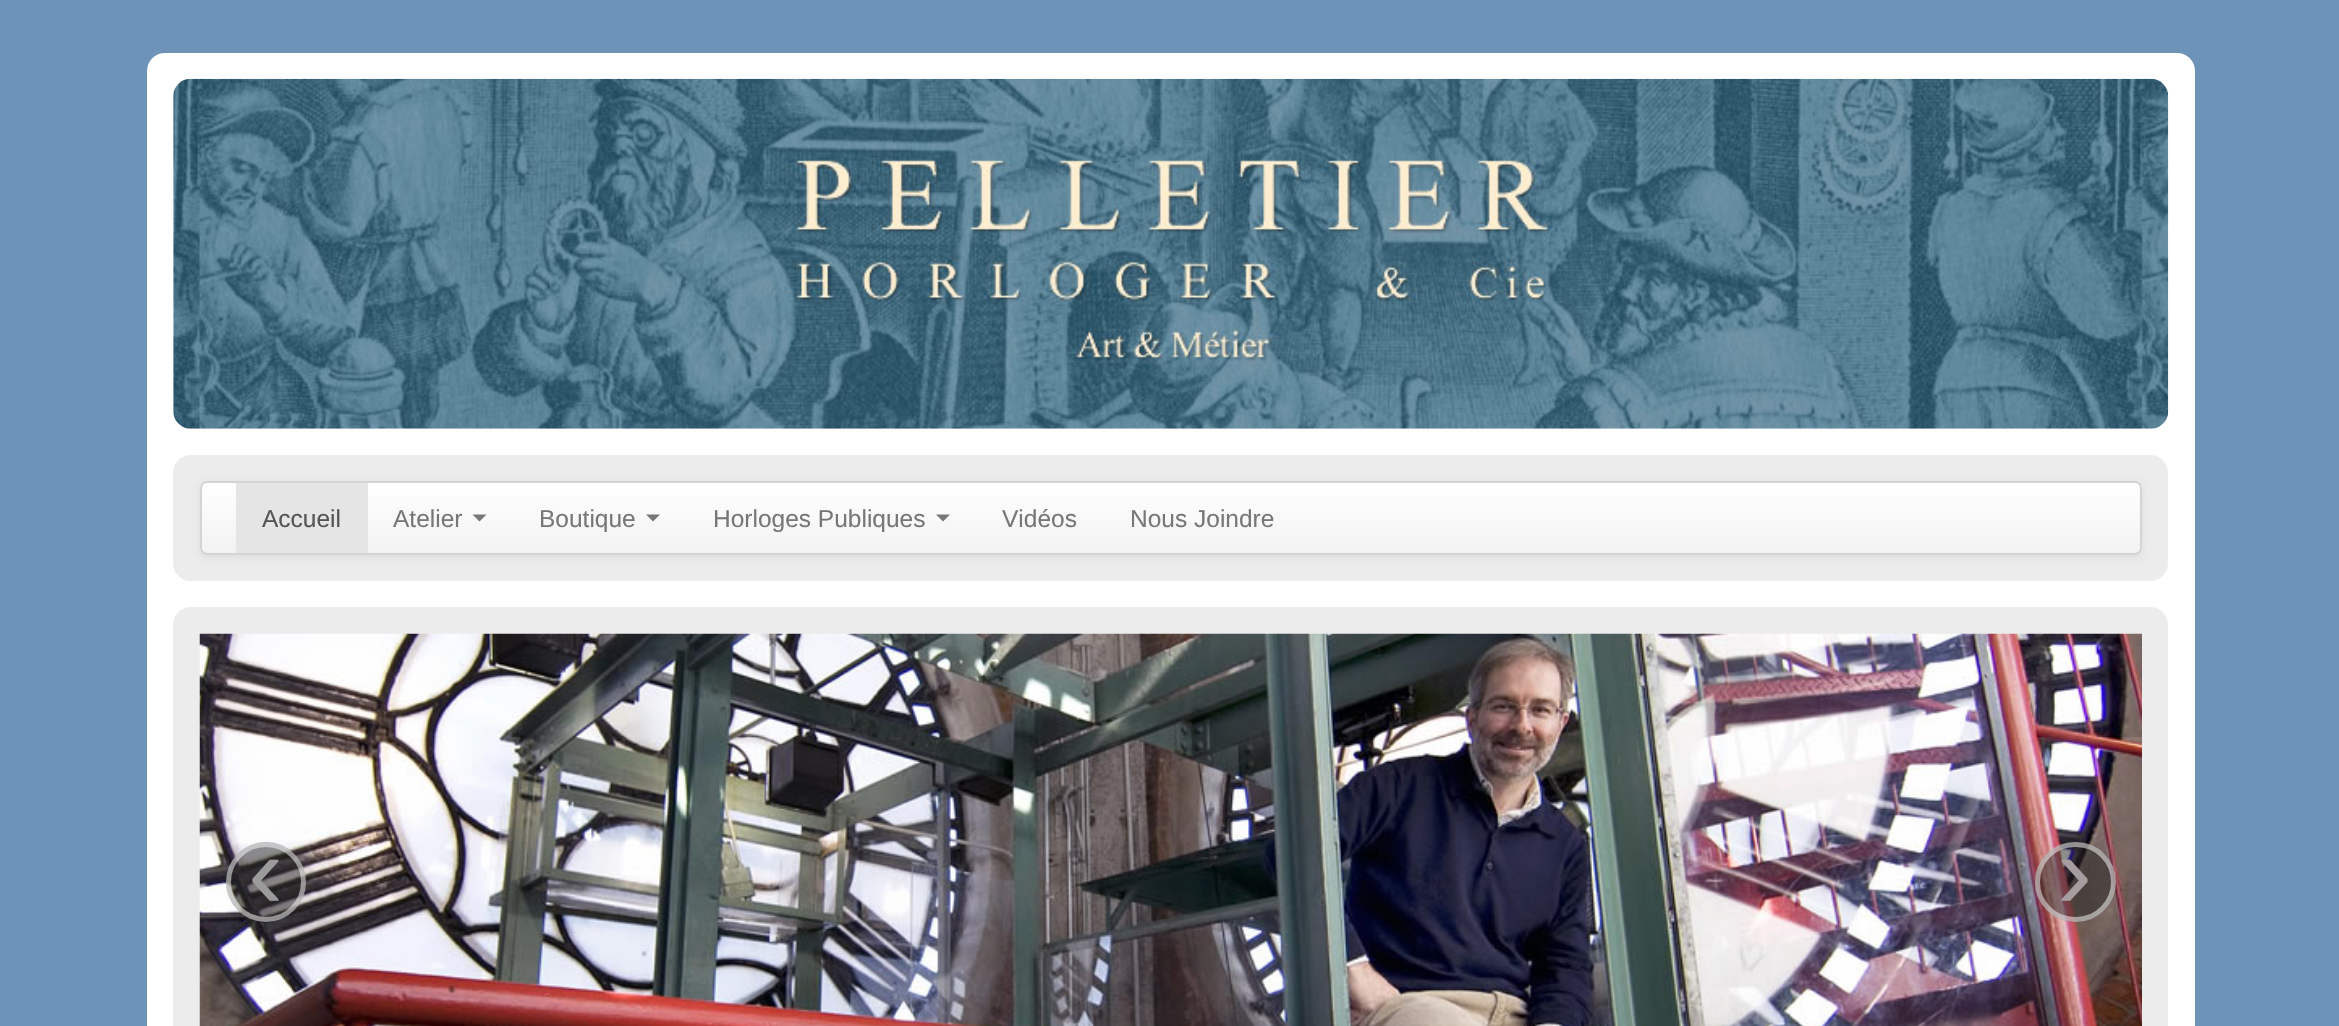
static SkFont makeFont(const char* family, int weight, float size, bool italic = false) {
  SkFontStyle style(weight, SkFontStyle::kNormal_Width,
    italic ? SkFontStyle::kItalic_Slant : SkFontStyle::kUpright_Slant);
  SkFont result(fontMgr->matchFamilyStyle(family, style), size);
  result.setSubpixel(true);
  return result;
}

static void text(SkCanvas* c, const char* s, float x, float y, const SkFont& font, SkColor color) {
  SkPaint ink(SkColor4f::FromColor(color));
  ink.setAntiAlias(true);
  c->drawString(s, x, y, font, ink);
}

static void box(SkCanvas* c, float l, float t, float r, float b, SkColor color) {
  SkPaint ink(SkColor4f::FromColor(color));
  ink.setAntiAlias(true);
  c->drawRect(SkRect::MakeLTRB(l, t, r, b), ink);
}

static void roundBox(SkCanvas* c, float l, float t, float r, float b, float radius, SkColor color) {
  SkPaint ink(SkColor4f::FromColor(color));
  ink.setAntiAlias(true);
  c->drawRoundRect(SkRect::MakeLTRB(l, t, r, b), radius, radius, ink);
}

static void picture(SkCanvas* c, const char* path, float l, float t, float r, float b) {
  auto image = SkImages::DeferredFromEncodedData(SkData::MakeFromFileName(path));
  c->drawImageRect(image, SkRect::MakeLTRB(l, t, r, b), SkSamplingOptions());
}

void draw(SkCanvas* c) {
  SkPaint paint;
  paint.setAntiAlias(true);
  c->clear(0xff6e93b8);
  roundBox(c, 147, 53, 2195, 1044, 18, 0xffffffff);
  picture(c, "img_01.png", 173, 78, 2169, 429);
  roundBox(c, 173, 455, 2168, 581, 18, 0xffececec);
  paint.setColor(0x12000000);
  paint.setMaskFilter(SkMaskFilter::MakeBlur(kNormal_SkBlurStyle, 3.5f));
  c->drawRoundRect(SkRect::MakeLTRB(200, 483, 2142, 557), 7, 7, paint);
  paint.setMaskFilter(nullptr);
  c->save();
  c->clipPath(SkPathBuilder().moveTo(207, 481).lineTo(2135, 481).cubicTo(2139, 481, 2142, 484, 2142, 488).lineTo(2142, 548).cubicTo(2142, 552, 2139, 555, 2135, 555).lineTo(207, 555).cubicTo(203, 555, 200, 552, 200, 548).lineTo(200, 488).cubicTo(200, 484, 203, 481, 207, 481).close().detach(), true);
  {
    const SkColor colors[] = {0xffffffff, 0xfff2f2f2};
    const float stops[] = {0, 1};
    const SkPoint ends[] = {{1171, 483}, {1171, 553}};
    paint.setShader(SkGradientShader::MakeLinear(ends, colors, stops, 2, SkTileMode::kClamp));
    paint.setAlpha(255);
  }
  c->drawRect(SkRect::MakeLTRB(200, 483, 2142, 553), paint);
  c->restore();
  paint.setStyle(SkPaint::kStroke_Style);
  paint.setStrokeWidth(2);
  paint.setShader(nullptr);
  paint.setColor(0xffd4d4d4);
  c->drawRoundRect(SkRect::MakeLTRB(201, 482, 2141, 554), 6, 6, paint);
  box(c, 236, 483, 368, 553, 0xffe5e5e5);
  SkFont face1 = makeFont("Liberation Sans", 400, 24.5f);
  text(c, "Accueil", 262, 527, face1, 0xff555555);
  text(c, "Atelier", 393, 527, face1, 0xff777777);
  paint.setStyle(SkPaint::kFill_Style);
  paint.setColor(0xff777777);
  c->drawPath(SkPathBuilder().moveTo(472.5f, 514.5f).lineTo(486.5f, 514.5f).lineTo(479.5f, 521.5f).close().detach(), paint);
  text(c, "Boutique", 539, 527, face1, 0xff777777);
  c->drawPath(SkPathBuilder().moveTo(646, 514.5f).lineTo(660, 514.5f).lineTo(653, 521.5f).close().detach(), paint);
  text(c, "Horloges Publiques", 713, 527, face1, 0xff777777);
  c->drawPath(SkPathBuilder().moveTo(936, 514.5f).lineTo(950, 514.5f).lineTo(943, 521.5f).close().detach(), paint);
  text(c, "Vidéos", 1002, 527, face1, 0xff777777);
  text(c, "Nous Joindre", 1130, 527, face1, 0xff777777);
  roundBox(c, 173, 607, 2168, 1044, 18, 0xffececec);
  picture(c, "img_02.png", 199, 633, 2142, 1026);
  paint.setColor(0x80222222);
  c->drawCircle(266, 882, 40, paint);
  paint.setStyle(SkPaint::kStroke_Style);
  paint.setStrokeWidth(5);
  paint.setColor(0x80ffffff);
  c->drawCircle(266, 882, 37.5f, paint);
  SkFont face2 = makeFont("Liberation Sans", 400, 105);
  text(c, "‹", 248, 908, face2, 0xff9c9b9c);
  roundBox(c, 2035, 842, 2116, 922, 40, 0x80222222);
  c->drawRoundRect(SkRect::MakeLTRB(2037.5f, 844.5f, 2113.5f, 919.5f), 37.5f, 37.5f, paint);
  text(c, "›", 2057, 908, face2, 0xffa59da0);
}
